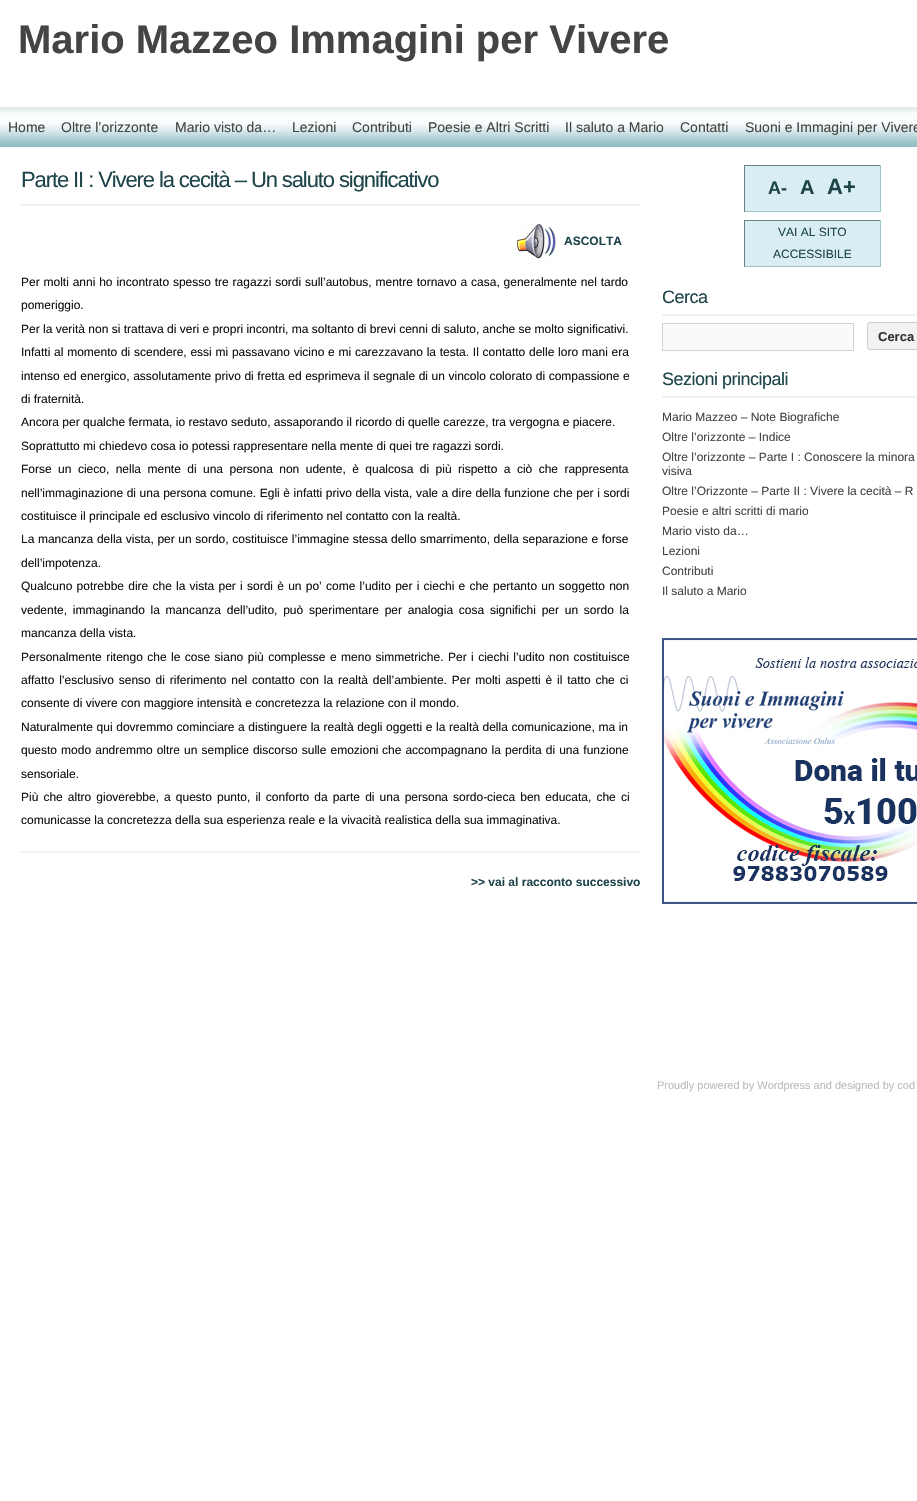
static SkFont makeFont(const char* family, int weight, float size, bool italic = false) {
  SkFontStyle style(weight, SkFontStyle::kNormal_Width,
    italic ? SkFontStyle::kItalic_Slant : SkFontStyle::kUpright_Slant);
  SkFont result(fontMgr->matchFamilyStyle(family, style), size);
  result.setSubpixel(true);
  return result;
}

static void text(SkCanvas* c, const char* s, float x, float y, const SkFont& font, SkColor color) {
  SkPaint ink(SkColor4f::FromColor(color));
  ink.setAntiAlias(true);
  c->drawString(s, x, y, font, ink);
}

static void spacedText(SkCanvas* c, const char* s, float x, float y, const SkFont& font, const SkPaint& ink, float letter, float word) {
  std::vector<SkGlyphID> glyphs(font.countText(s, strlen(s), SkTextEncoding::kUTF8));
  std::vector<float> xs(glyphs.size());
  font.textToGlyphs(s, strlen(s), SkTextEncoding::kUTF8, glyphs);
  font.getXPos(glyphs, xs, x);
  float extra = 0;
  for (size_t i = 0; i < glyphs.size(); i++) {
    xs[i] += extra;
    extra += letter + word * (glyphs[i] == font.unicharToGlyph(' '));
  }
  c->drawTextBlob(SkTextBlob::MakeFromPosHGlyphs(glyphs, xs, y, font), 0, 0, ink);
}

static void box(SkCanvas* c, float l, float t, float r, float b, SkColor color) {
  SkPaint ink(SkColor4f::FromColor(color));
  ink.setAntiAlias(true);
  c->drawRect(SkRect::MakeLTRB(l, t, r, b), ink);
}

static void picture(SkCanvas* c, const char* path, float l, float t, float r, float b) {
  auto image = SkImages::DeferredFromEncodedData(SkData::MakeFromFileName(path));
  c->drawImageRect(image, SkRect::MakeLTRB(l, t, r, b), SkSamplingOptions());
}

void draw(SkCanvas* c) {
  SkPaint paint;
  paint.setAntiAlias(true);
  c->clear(0xffffffff);
  SkFont face1 = makeFont("Liberation Sans", 700, 40);
  text(c, "Mario Mazzeo Immagini per Vivere", 18, 53, face1, 0xff444444);
  picture(c, "img_01.png", 0, 107, 917, 147);
  SkFont face2 = makeFont("Liberation Sans", 400, 14);
  text(c, "Home", 8, 132, face2, 0xff444444);
  text(c, "Oltre l’orizzonte", 61, 132, face2, 0xff444444);
  text(c, "Mario visto da…", 175, 132, face2, 0xff444444);
  text(c, "Lezioni", 292, 132, face2, 0xff444444);
  text(c, "Contributi", 352, 132, face2, 0xff444444);
  text(c, "Poesie e Altri Scritti", 428, 132, face2, 0xff444444);
  text(c, "Il saluto a Mario", 565, 132, face2, 0xff444444);
  text(c, "Contatti", 680, 132, face2, 0xff444444);
  text(c, "Suoni e Immagini per Vivere", 745, 132, face2, 0xff444444);
  SkFont face3 = makeFont("Liberation Sans", 400, 22);
  paint.setColor(0xff1e454a);
  spacedText(c, "Parte II : Vivere la cecità – Un saluto significativo", 21, 187, face3, paint, -1.1f, 0);
  box(c, 21, 204, 641, 206, 0xfff1f2f4);
  picture(c, "img_02.png", 516, 224, 556, 260);
  SkFont face4 = makeFont("Liberation Sans", 700, 12);
  text(c, "ASCOLTA", 564, 245, face4, 0xff1e454a);
  SkFont face5 = makeFont("Liberation Sans", 400, 12);
  paint.setColor(0xff111111);
  spacedText(c, "Per molti anni ho incontrato spesso tre ragazzi sordi sull’autobus, mentre tornavo a casa, generalmente nel tardo", 21, 286, face5, paint, 0, 0.5f);
  text(c, "pomeriggio.", 21, 309, face5, 0xff111111);
  text(c, "Per la verità non si trattava di veri e propri incontri, ma soltanto di brevi cenni di saluto, anche se molto significativi.", 21, 333, face5, 0xff111111);
  spacedText(c, "Infatti al momento di scendere, essi mi passavano vicino e mi carezzavano la testa. Il contatto delle loro mani era", 21, 356, face5, paint, 0, 0.4f);
  spacedText(c, "intenso ed energico, assolutamente privo di fretta ed esprimeva il segnale di un vincolo colorato di compassione e", 21, 380, face5, paint, 0, 0.25f);
  text(c, "di fraternità.", 21, 403, face5, 0xff111111);
  text(c, "Ancora per qualche fermata, io restavo seduto, assaporando il ricordo di quelle carezze, tra vergogna e piacere.", 21, 426, face5, 0xff111111);
  text(c, "Soprattutto mi chiedevo cosa io potessi rappresentare nella mente di quei tre ragazzi sordi.", 21, 450, face5, 0xff111111);
  spacedText(c, "Forse un cieco, nella mente di una persona non udente, è qualcosa di più rispetto a ciò che rappresenta", 21, 473, face5, paint, 0, 3.1f);
  spacedText(c, "nell’immaginazione di una persona comune. Egli è infatti privo della vista, vale a dire della funzione che per i sordi", 21, 497, face5, paint, 0, 0.25f);
  text(c, "costituisce il principale ed esclusivo vincolo di riferimento nel contatto con la realtà.", 21, 520, face5, 0xff111111);
  spacedText(c, "La mancanza della vista, per un sordo, costituisce l’immagine stessa dello smarrimento, della separazione e forse", 21, 543, face5, paint, 0, 0.25f);
  text(c, "dell’impotenza.", 21, 567, face5, 0xff111111);
  spacedText(c, "Qualcuno potrebbe dire che la vista per i sordi è un po’ come l’udito per i ciechi e che pertanto un soggetto non", 21, 590, face5, paint, 0, 0.9f);
  spacedText(c, "vedente, immaginando la mancanza dell’udito, può sperimentare per analogia cosa significhi per un sordo la", 21, 614, face5, paint, 0, 2.4f);
  text(c, "mancanza della vista.", 21, 637, face5, 0xff111111);
  spacedText(c, "Personalmente ritengo che le cose siano più complesse e meno simmetriche. Per i ciechi l’udito non costituisce", 21, 661, face5, paint, 0, 1.1f);
  spacedText(c, "affatto l’esclusivo senso di riferimento nel contatto con la realtà dell’ambiente. Per molti aspetti è il tatto che ci", 21, 684, face5, paint, 0, 1.5f);
  text(c, "consente di vivere con maggiore intensità e concretezza la relazione con il mondo.", 21, 707, face5, 0xff111111);
  spacedText(c, "Naturalmente qui dovremmo cominciare a distinguere la realtà degli oggetti e la realtà della comunicazione, ma in", 21, 731, face5, paint, 0, 0.25f);
  spacedText(c, "questo modo andremmo oltre un semplice discorso sulle emozioni", 21, 754, face5, paint, 0, 0.75f);
  spacedText(c, "che accompagnano la perdita di una funzione", 382, 754, face5, paint, 0, 0.75f);
  text(c, "sensoriale.", 21, 778, face5, 0xff111111);
  spacedText(c, "Più che altro gioverebbe, a questo punto, il conforto da parte di una persona sordo-cieca ben educata, che ci", 21, 801, face5, paint, 0, 1.75f);
  text(c, "comunicasse la concretezza della sua esperienza reale e la vivacità realistica della sua immaginativa.", 21, 824, face5, 0xff111111);
  box(c, 21, 851, 641, 853, 0xfff1f2f4);
  text(c, ">> vai al racconto successivo", 471, 886, face4, 0xff1e454a);
  box(c, 745, 166, 880, 211, 0xffd8eef3);
  box(c, 744, 165, 881, 166, 0xff678385);
  box(c, 880, 165, 881, 212, 0xff9bc4c8);
  box(c, 744, 211, 881, 212, 0xff9bc4c8);
  box(c, 744, 165, 745, 212, 0xff678385);
  SkFont face6 = makeFont("Liberation Sans", 700, 18);
  text(c, "A-", 768, 194, face6, 0xff1e454a);
  SkFont face7 = makeFont("Liberation Sans", 700, 20);
  text(c, "A", 800, 194, face7, 0xff1e454a);
  SkFont face8 = makeFont("Liberation Sans", 700, 22);
  text(c, "A+", 827, 194, face8, 0xff1e454a);
  box(c, 745, 221, 880, 266, 0xffd8eef3);
  box(c, 744, 220, 881, 221, 0xff678385);
  box(c, 880, 220, 881, 267, 0xff9bc4c8);
  box(c, 744, 266, 881, 267, 0xff9bc4c8);
  box(c, 744, 220, 745, 267, 0xff678385);
  text(c, "VAI AL SITO", 778, 236, face5, 0xff1e454a);
  text(c, "ACCESSIBILE", 773, 258, face5, 0xff1e454a);
  box(c, 662, 314, 917, 316, 0xfff1f2f4);
  SkFont face9 = makeFont("Liberation Sans", 400, 18);
  paint.setColor(0xff1e454a);
  spacedText(c, "Cerca", 662, 303, face9, paint, -0.5f, 0);
  paint.setColor(0xfffafafa);
  c->drawRect(SkRect::MakeLTRB(662.5f, 323.5f, 853.5f, 350.5f), paint);
  paint.setStyle(SkPaint::kStroke_Style);
  paint.setStrokeWidth(1);
  paint.setColor(0xffd1d1d1);
  c->drawRect(SkRect::MakeLTRB(662.5f, 323.5f, 853.5f, 350.5f), paint);
  paint.setStyle(SkPaint::kFill_Style);
  paint.setColor(0xfff2f2f2);
  c->drawRoundRect(SkRect::MakeLTRB(867.5f, 322.5f, 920.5f, 349.5f), 2.5f, 2.5f, paint);
  paint.setStyle(SkPaint::kStroke_Style);
  paint.setColor(0xffcccccc);
  c->drawRoundRect(SkRect::MakeLTRB(867.5f, 322.5f, 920.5f, 349.5f), 2.5f, 2.5f, paint);
  SkFont face10 = makeFont("Liberation Sans", 700, 13);
  text(c, "Cerca", 878, 341, face10, 0xff333333);
  box(c, 662, 396, 917, 398, 0xfff1f2f4);
  paint.setStyle(SkPaint::kFill_Style);
  paint.setColor(0xff1e454a);
  spacedText(c, "Sezioni principali", 662, 385, face9, paint, -0.5f, 0);
  text(c, "Mario Mazzeo – Note Biografiche", 662, 421, face5, 0xff444444);
  text(c, "Oltre l’orizzonte – Indice", 662, 441, face5, 0xff444444);
  text(c, "Oltre l’orizzonte – Parte I : Conoscere la minora", 662, 461, face5, 0xff444444);
  text(c, "visiva", 662, 475, face5, 0xff444444);
  text(c, "Oltre l’Orizzonte – Parte II : Vivere la cecità – R", 662, 495, face5, 0xff444444);
  text(c, "Poesie e altri scritti di mario", 662, 515, face5, 0xff444444);
  text(c, "Mario visto da…", 662, 535, face5, 0xff444444);
  text(c, "Lezioni", 662, 555, face5, 0xff444444);
  text(c, "Contributi", 662, 575, face5, 0xff444444);
  text(c, "Il saluto a Mario", 662, 595, face5, 0xff444444);
  picture(c, "img_03.png", 662, 638, 917, 904);
  SkFont face11 = makeFont("Liberation Sans", 400, 11);
  text(c, "Proudly powered by Wordpress and designed by cod", 657, 1089, face11, 0xffbbbbbb);
}
